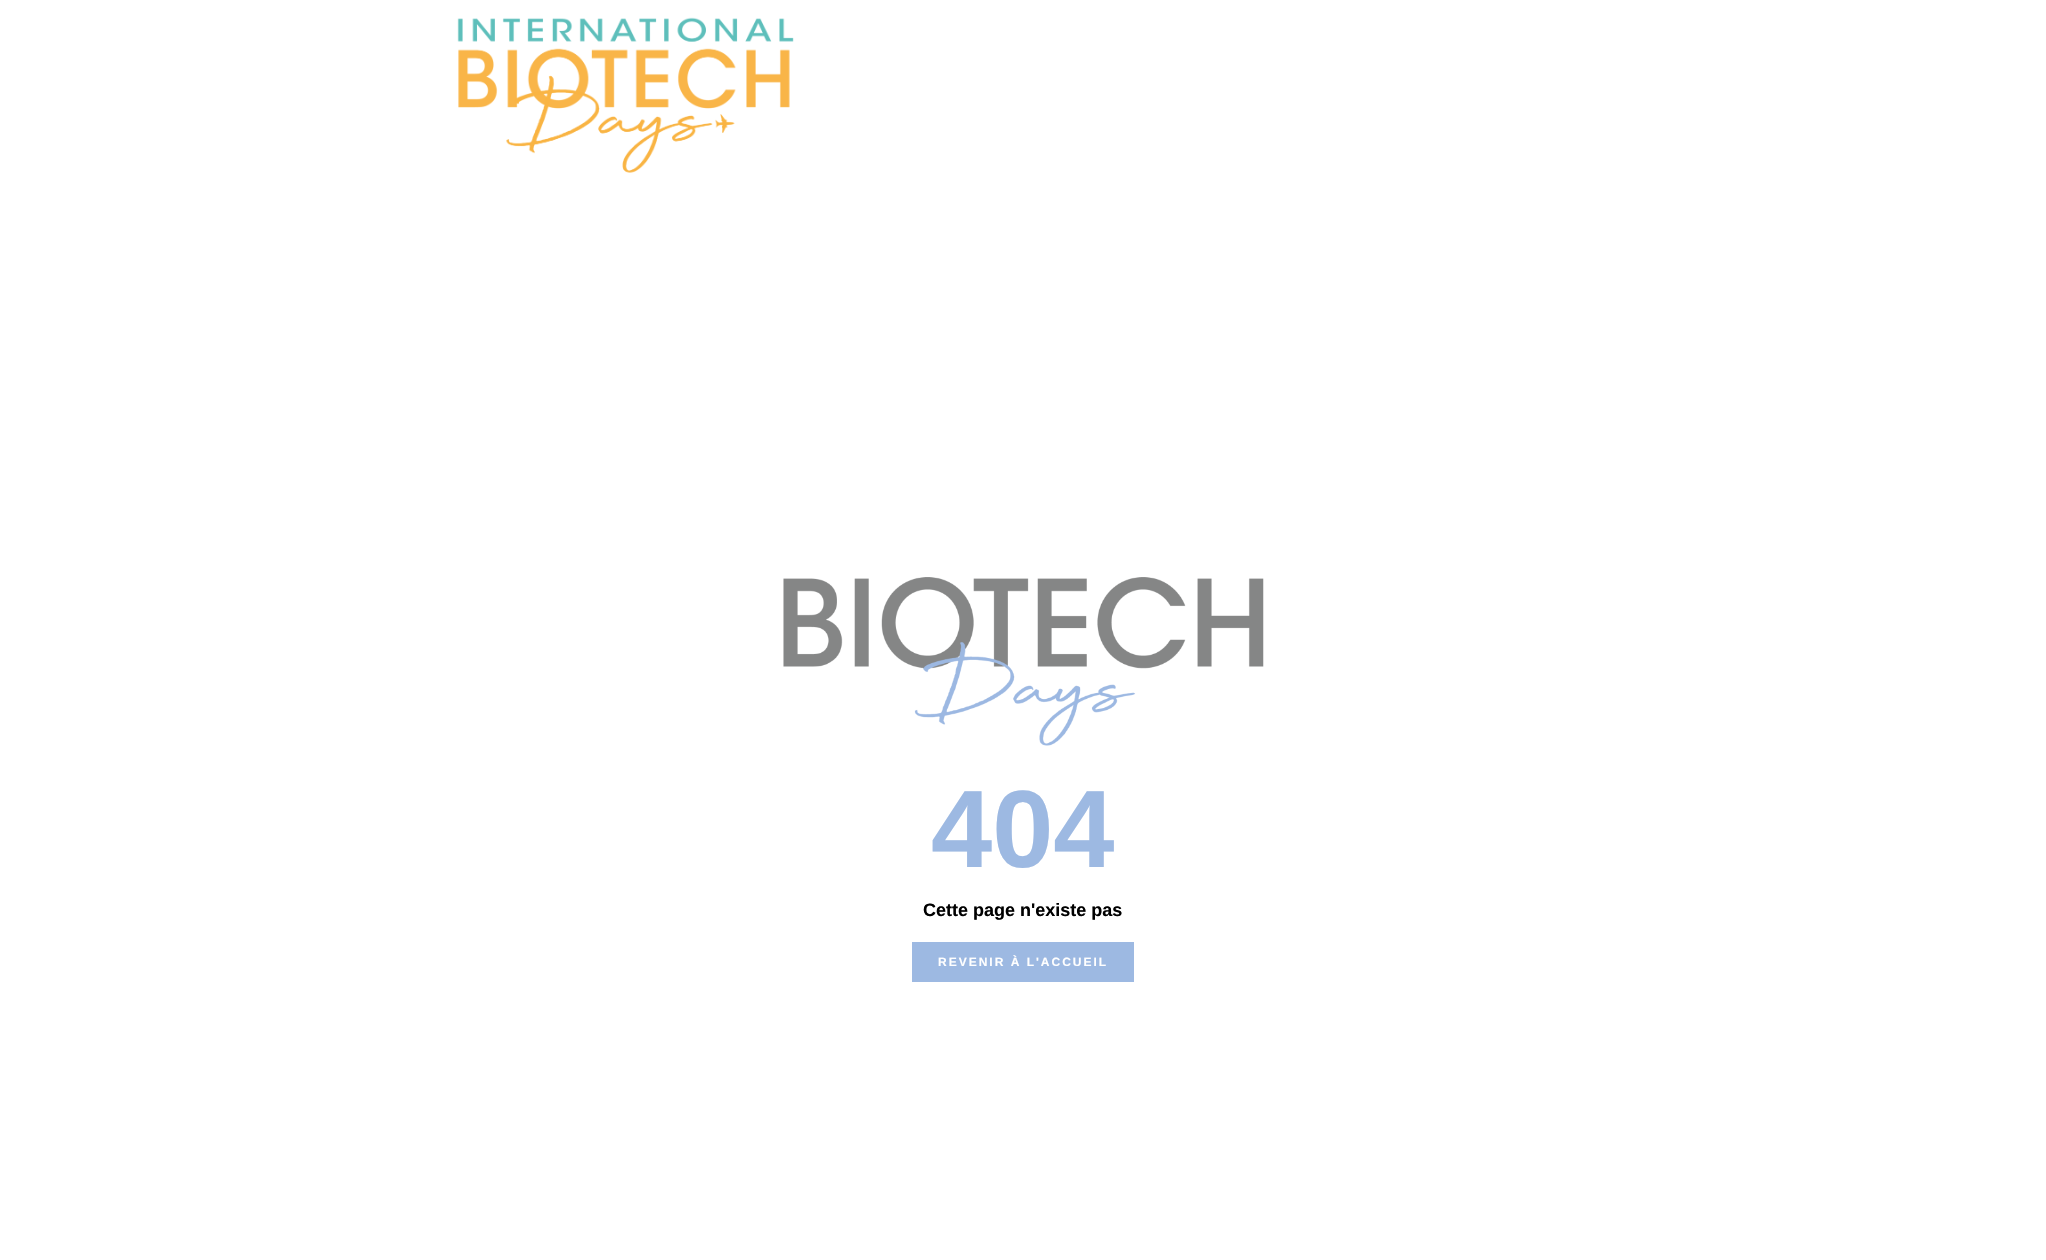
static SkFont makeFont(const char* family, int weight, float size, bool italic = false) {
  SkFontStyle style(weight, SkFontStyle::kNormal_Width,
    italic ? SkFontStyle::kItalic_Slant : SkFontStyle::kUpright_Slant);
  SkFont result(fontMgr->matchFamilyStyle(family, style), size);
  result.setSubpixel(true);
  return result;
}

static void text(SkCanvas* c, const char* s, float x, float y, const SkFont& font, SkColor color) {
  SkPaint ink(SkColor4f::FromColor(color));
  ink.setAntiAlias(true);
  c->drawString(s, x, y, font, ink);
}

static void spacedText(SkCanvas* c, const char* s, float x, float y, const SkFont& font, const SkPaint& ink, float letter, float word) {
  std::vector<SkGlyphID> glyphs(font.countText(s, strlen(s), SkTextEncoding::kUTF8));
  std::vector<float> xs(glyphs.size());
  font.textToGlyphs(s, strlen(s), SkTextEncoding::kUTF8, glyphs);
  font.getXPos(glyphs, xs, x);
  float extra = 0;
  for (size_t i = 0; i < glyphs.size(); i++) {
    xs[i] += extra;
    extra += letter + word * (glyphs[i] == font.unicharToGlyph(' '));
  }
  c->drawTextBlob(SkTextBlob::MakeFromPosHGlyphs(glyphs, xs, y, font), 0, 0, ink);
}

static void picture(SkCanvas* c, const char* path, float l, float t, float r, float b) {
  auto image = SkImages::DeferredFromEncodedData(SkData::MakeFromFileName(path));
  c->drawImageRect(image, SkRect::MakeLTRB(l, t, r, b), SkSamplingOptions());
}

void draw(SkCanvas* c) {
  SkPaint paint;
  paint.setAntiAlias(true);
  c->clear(0xffffffff);
  picture(c, "img_01.png", 457, 17, 794, 173);
  picture(c, "img_02.png", 783, 577, 1264, 746);
  SkFont face1 = makeFont("Liberation Sans", 700, 110);
  text(c, "404", 931, 867, face1, 0xff9db9e2);
  SkFont face2 = makeFont("Liberation Sans", 700, 18);
  text(c, "Cette page n'existe pas", 923, 916, face2, 0xff000000);
  paint.setColor(0xff9db9e2);
  c->drawRect(SkRect::MakeLTRB(913, 943, 1133, 981), paint);
  paint.setStyle(SkPaint::kStroke_Style);
  paint.setStrokeWidth(2);
  c->drawRect(SkRect::MakeLTRB(913, 943, 1133, 981), paint);
  SkFont face3 = makeFont("Liberation Sans", 700, 12);
  paint.setStyle(SkPaint::kFill_Style);
  paint.setColor(0xffffffff);
  spacedText(c, "REVENIR À L'ACCUEIL", 938, 966, face3, paint, 2, 0);
}
